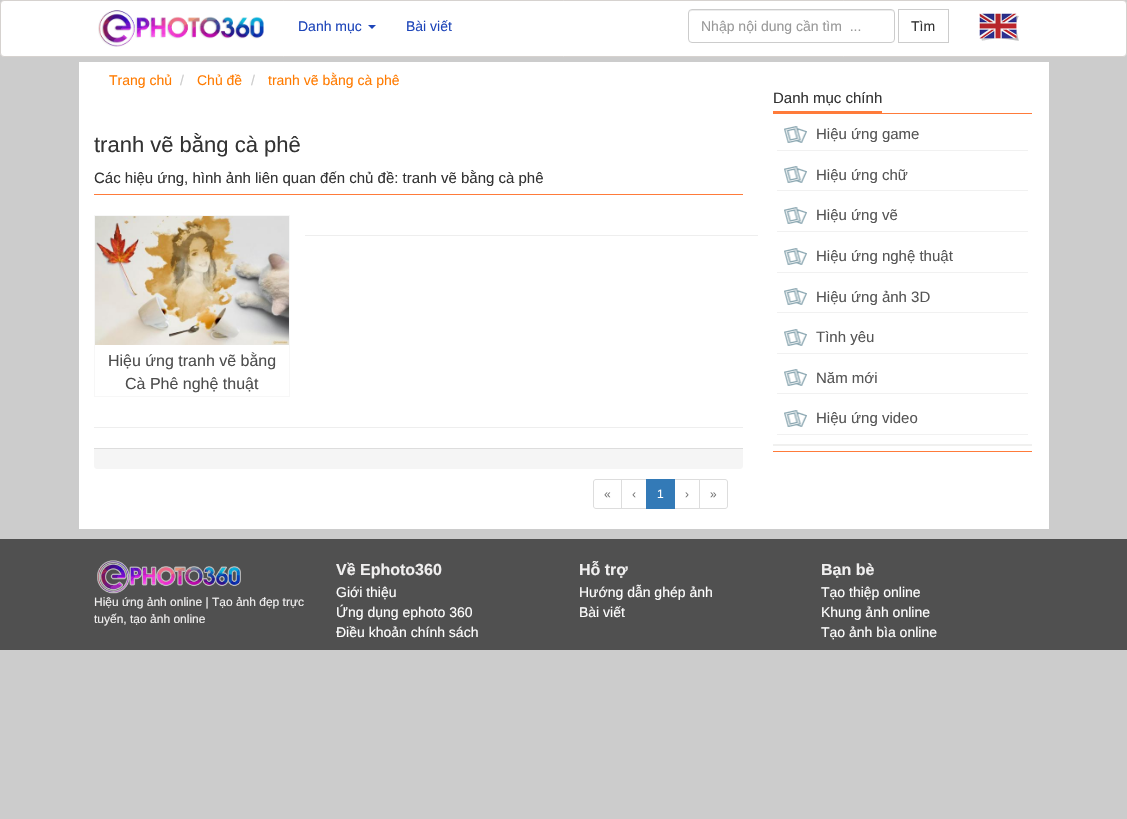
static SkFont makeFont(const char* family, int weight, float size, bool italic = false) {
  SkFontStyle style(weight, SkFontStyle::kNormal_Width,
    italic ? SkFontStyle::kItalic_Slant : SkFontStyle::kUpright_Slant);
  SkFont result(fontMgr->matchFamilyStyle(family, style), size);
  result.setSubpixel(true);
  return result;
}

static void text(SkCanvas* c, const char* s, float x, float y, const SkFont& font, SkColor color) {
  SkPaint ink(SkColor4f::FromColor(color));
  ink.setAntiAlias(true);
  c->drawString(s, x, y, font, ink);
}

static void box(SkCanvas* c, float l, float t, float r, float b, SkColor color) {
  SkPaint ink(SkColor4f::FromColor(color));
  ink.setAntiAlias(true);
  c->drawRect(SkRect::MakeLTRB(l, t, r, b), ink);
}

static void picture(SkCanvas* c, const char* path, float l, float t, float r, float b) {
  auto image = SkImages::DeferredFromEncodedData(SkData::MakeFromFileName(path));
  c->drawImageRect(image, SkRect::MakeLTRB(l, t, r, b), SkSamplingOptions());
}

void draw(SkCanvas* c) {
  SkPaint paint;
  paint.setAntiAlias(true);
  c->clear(0xffcccccc);
  paint.setColor(0xffffffff);
  c->drawRoundRect(SkRect::MakeLTRB(0.5f, 0.5f, 1126.5f, 56.5f), 3.5f, 3.5f, paint);
  paint.setStyle(SkPaint::kStroke_Style);
  paint.setStrokeWidth(1);
  paint.setColor(0xffd6d2cf);
  c->drawRoundRect(SkRect::MakeLTRB(0.5f, 0.5f, 1126.5f, 56.5f), 3.5f, 3.5f, paint);
  picture(c, "img_01.png", 98, 10, 264, 47);
  SkFont face1 = makeFont("Liberation Sans", 400, 14);
  text(c, "Danh mục", 298, 31, face1, 0xff1d45b9);
  paint.setStyle(SkPaint::kFill_Style);
  paint.setColor(0xff1d45b9);
  c->drawPath(SkPathBuilder().moveTo(368, 25).lineTo(376, 25).lineTo(372, 29).close().detach(), paint);
  text(c, "Bài viết", 406, 31, face1, 0xff1d45b9);
  paint.setColor(0xffececec);
  c->drawPath(SkPathBuilder().moveTo(692, 11).lineTo(891, 11).cubicTo(893, 11, 894, 12, 894, 14).cubicTo(894, 12, 893, 10, 891, 10).lineTo(692, 10).cubicTo(690, 10, 689, 12, 689, 14).cubicTo(689, 12, 690, 11, 692, 11).close().detach(), paint);
  paint.setStyle(SkPaint::kStroke_Style);
  paint.setColor(0xffcccccc);
  c->drawRoundRect(SkRect::MakeLTRB(688.5f, 9.5f, 894.5f, 42.5f), 3.5f, 3.5f, paint);
  text(c, "Nhập nội dung cần tìm  ...", 701, 31, face1, 0xff999999);
  c->drawRect(SkRect::MakeLTRB(898.5f, 9.5f, 948.5f, 42.5f), paint);
  text(c, "Tìm", 911, 31, face1, 0xff333333);
  picture(c, "img_02.png", 979, 13, 1019, 41);
  box(c, 79, 62, 1049, 529, 0xffffffff);
  text(c, "Trang chủ", 109, 85, face1, 0xffff7b00);
  text(c, "/", 180, 85, face1, 0xffcccccc);
  text(c, "Chủ đề", 197, 85, face1, 0xffff7b00);
  text(c, "/", 251, 85, face1, 0xffcccccc);
  text(c, "tranh vẽ bằng cà phê", 268, 85, face1, 0xffff7b00);
  box(c, 94, 194, 743, 195, 0xffff7b3a);
  SkFont face2 = makeFont("Liberation Sans", 400, 22);
  text(c, "tranh vẽ bằng cà phê", 94, 152, face2, 0xff333333);
  SkFont face3 = makeFont("Liberation Sans", 400, 15);
  text(c, "Các hiệu ứng, hình ảnh liên quan đến chủ đề: tranh vẽ bằng cà phê", 94, 183, face3, 0xff333333);
  box(c, 305, 235, 758, 236, 0xffeeeeee);
  paint.setColor(0xfff7f7f7);
  c->drawRect(SkRect::MakeLTRB(94.5f, 215.5f, 289.5f, 396.5f), paint);
  picture(c, "img_03.png", 95, 216, 289, 345);
  SkFont face4 = makeFont("Liberation Sans", 400, 16);
  text(c, "Hiệu ứng tranh vẽ bằng", 108, 366, face4, 0xff4e4e4e);
  text(c, "Cà Phê nghệ thuật", 125, 389, face4, 0xff4e4e4e);
  box(c, 94, 427, 743, 428, 0xffeeeeee);
  paint.setStyle(SkPaint::kFill_Style);
  paint.setColor(0xfff5f5f5);
  c->drawPath(SkPathBuilder().moveTo(94, 448).lineTo(743, 448).lineTo(743, 466).cubicTo(743, 467.5f, 741.5f, 469, 740, 469).lineTo(97, 469).cubicTo(95.5f, 469, 94, 467.5f, 94, 466).close().detach(), paint);
  box(c, 94, 448, 743, 449, 0xffdddddd);
  paint.setStyle(SkPaint::kStroke_Style);
  paint.setColor(0xffdddddd);
  c->drawPath(SkPathBuilder().moveTo(596, 479.5f).lineTo(621.5f, 479.5f).lineTo(621.5f, 508.5f).lineTo(596, 508.5f).cubicTo(594.5f, 508.5f, 593.5f, 507.5f, 593.5f, 506).lineTo(593.5f, 482).cubicTo(593.5f, 480.5f, 594.5f, 479.5f, 596, 479.5f).close().detach(), paint);
  SkFont face5 = makeFont("Liberation Sans", 400, 12);
  text(c, "«", 604, 498, face5, 0xff777777);
  c->drawRect(SkRect::MakeLTRB(621.5f, 479.5f, 646.5f, 508.5f), paint);
  text(c, "‹", 632, 498, face5, 0xff777777);
  c->drawRect(SkRect::MakeLTRB(674.5f, 479.5f, 699.5f, 508.5f), paint);
  box(c, 646, 479, 675, 509, 0xff337ab7);
  text(c, "1", 657, 498, face5, 0xffffffff);
  text(c, "›", 685, 498, face5, 0xff777777);
  paint.setStyle(SkPaint::kFill_Style);
  paint.setColor(0xffffffff);
  c->drawPath(SkPathBuilder().moveTo(699.5f, 479.5f).lineTo(725, 479.5f).cubicTo(726.5f, 479.5f, 727.5f, 480.5f, 727.5f, 482).lineTo(727.5f, 506).cubicTo(727.5f, 507.5f, 726.5f, 508.5f, 725, 508.5f).lineTo(699.5f, 508.5f).close().detach(), paint);
  paint.setStyle(SkPaint::kStroke_Style);
  paint.setColor(0xffdddddd);
  c->drawPath(SkPathBuilder().moveTo(699.5f, 479.5f).lineTo(725, 479.5f).cubicTo(726.5f, 479.5f, 727.5f, 480.5f, 727.5f, 482).lineTo(727.5f, 506).cubicTo(727.5f, 507.5f, 726.5f, 508.5f, 725, 508.5f).lineTo(699.5f, 508.5f).close().detach(), paint);
  text(c, "»", 710, 498, face5, 0xff777777);
  box(c, 773, 113, 1032, 114, 0xffff7b3a);
  text(c, "Danh mục chính", 773, 103, face3, 0xff333333);
  box(c, 773, 111, 882, 113, 0xffff7b3a);
  box(c, 777, 150, 1028, 151, 0xfff1f1f1);
  picture(c, "img_04.png", 784, 126, 807, 143);
  text(c, "Hiệu ứng game", 816, 139, face3, 0xff555555);
  box(c, 777, 190, 1028, 191, 0xfff1f1f1);
  picture(c, "img_04.png", 784, 166, 807, 183);
  text(c, "Hiệu ứng chữ", 816, 180, face3, 0xff555555);
  box(c, 777, 231, 1028, 232, 0xfff1f1f1);
  picture(c, "img_04.png", 784, 207, 807, 224);
  text(c, "Hiệu ứng vẽ", 816, 220, face3, 0xff555555);
  box(c, 777, 272, 1028, 273, 0xfff1f1f1);
  picture(c, "img_04.png", 784, 248, 807, 265);
  text(c, "Hiệu ứng nghệ thuật", 816, 261, face3, 0xff555555);
  box(c, 777, 312, 1028, 313, 0xfff1f1f1);
  picture(c, "img_04.png", 784, 288, 807, 305);
  text(c, "Hiệu ứng ảnh 3D", 816, 302, face3, 0xff555555);
  box(c, 777, 353, 1028, 354, 0xfff1f1f1);
  picture(c, "img_04.png", 784, 329, 807, 346);
  text(c, "Tình yêu", 816, 342, face3, 0xff555555);
  box(c, 777, 393, 1028, 394, 0xfff1f1f1);
  picture(c, "img_04.png", 784, 369, 807, 386);
  text(c, "Năm mới", 816, 383, face3, 0xff555555);
  box(c, 777, 434, 1028, 435, 0xfff1f1f1);
  picture(c, "img_04.png", 784, 410, 807, 427);
  text(c, "Hiệu ứng video", 816, 423, face3, 0xff555555);
  box(c, 773, 451, 1032, 452, 0xffff7b3a);
  box(c, 773, 444, 1032, 446, 0xfff0f0ef);
  box(c, 0, 539, 1127, 650, 0xff505050);
  picture(c, "img_05.png", 97, 560, 241, 594);
  text(c, "Hiệu ứng ảnh online | Tạo ảnh đẹp trực", 94, 606, face5, 0xfff0efef);
  text(c, "tuyến, tạo ảnh online", 94, 623, face5, 0xfff0efef);
  SkFont face6 = makeFont("Liberation Sans", 700, 16);
  text(c, "Về Ephoto360", 336, 575, face6, 0xfff0efef);
  text(c, "Giới thiệu", 336, 597, face1, 0xffffffff);
  text(c, "Ứng dụng ephoto 360", 336, 617, face1, 0xffffffff);
  text(c, "Điều khoản chính sách", 336, 637, face1, 0xffffffff);
  text(c, "Hỗ trợ", 579, 575, face6, 0xfff0efef);
  text(c, "Hướng dẫn ghép ảnh", 579, 597, face1, 0xffffffff);
  text(c, "Bài viết", 579, 617, face1, 0xffffffff);
  text(c, "Bạn bè", 821, 575, face6, 0xfff0efef);
  text(c, "Tạo thiệp online", 821, 597, face1, 0xffffffff);
  text(c, "Khung ảnh online", 821, 617, face1, 0xffffffff);
  text(c, "Tạo ảnh bìa online", 821, 637, face1, 0xffffffff);
}
